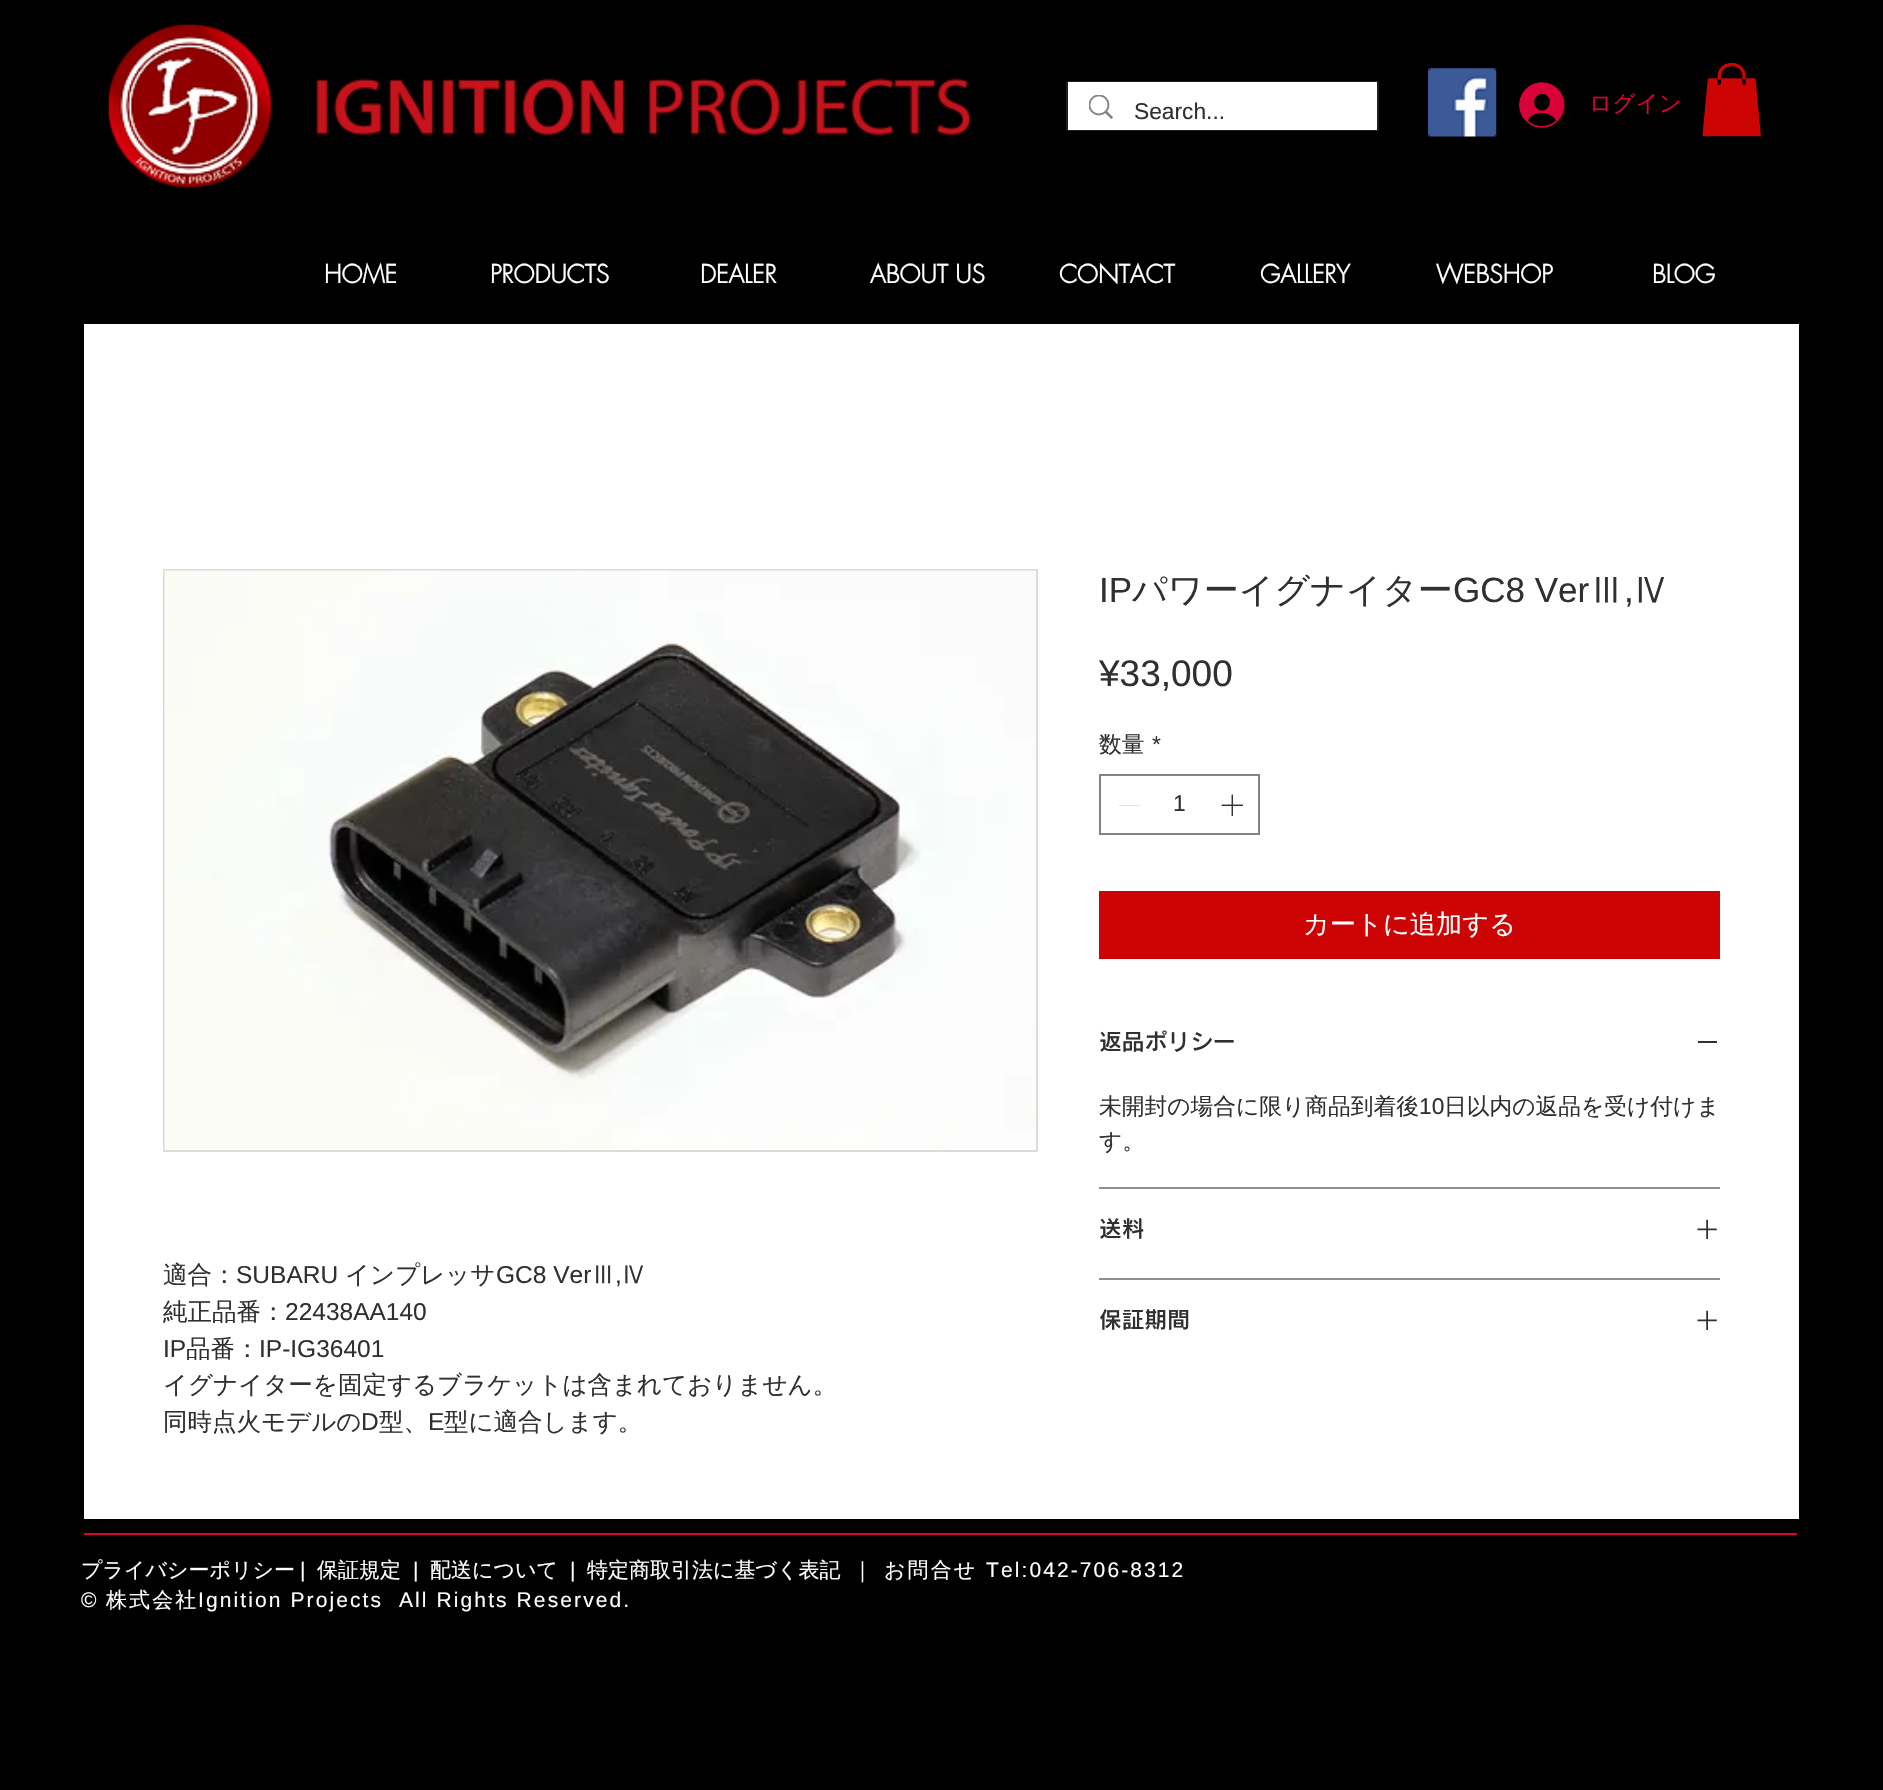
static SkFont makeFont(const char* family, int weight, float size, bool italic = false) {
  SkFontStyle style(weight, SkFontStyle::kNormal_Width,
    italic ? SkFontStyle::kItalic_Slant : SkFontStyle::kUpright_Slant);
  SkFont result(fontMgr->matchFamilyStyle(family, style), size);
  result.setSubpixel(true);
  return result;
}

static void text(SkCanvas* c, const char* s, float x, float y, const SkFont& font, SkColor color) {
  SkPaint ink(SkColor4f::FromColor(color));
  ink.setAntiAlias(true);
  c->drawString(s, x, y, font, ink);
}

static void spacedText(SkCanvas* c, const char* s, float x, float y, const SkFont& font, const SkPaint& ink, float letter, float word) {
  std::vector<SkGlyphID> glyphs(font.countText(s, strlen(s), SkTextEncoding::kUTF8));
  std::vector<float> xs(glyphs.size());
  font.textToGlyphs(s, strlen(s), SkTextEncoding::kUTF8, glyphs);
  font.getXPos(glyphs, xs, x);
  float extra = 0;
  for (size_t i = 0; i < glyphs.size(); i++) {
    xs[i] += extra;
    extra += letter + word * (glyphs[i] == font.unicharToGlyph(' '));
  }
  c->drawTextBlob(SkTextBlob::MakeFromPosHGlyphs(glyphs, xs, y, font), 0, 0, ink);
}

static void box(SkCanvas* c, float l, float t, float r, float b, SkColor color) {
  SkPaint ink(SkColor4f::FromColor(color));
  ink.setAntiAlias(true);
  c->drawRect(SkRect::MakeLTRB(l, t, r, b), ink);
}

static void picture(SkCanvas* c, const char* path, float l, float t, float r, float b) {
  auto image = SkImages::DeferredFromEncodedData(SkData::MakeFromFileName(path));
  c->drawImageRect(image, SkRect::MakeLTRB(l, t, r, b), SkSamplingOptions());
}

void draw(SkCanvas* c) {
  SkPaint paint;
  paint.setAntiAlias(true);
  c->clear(0xff000000);
  picture(c, "img_01.png", 108, 24, 970, 188);
  paint.setStyle(SkPaint::kStroke_Style);
  paint.setStrokeWidth(2);
  paint.setColor(0xff1d1d1d);
  c->drawRect(SkRect::MakeLTRB(1067, 82, 1378, 130), paint);
  box(c, 1068, 82, 1377, 130, 0xffffffff);
  picture(c, "img_02.png", 1089, 95, 1113, 119);
  SkFont face1 = makeFont("Liberation Sans", 400, 22.75f);
  text(c, "Search...", 1134, 119, face1, 0xff303030);
  picture(c, "img_03.png", 1428, 68, 1497, 137);
  picture(c, "img_04.png", 1519, 82, 1565, 128);
  SkFont face2 = makeFont("WenQuanYi Zen Hei", 500, 22.75f);
  text(c, "ログイン", 1589, 111, face2, 0xffd90238);
  picture(c, "img_05.png", 1702, 63, 1761, 137);
  SkFont face3 = makeFont("futura", 700, 24.5f);
  text(c, "HOME", 324, 283, face3, 0xffffffff);
  text(c, "PRODUCTS", 490, 283, face3, 0xffffffff);
  text(c, "DEALER", 700, 283, face3, 0xffffffff);
  text(c, "ABOUT US", 870, 283, face3, 0xffffffff);
  text(c, "CONTACT", 1059, 283, face3, 0xffffffff);
  text(c, "GALLERY", 1260, 283, face3, 0xffffffff);
  text(c, "WEBSHOP", 1436, 283, face3, 0xffffffff);
  text(c, "BLOG", 1652, 283, face3, 0xffffffff);
  box(c, 84, 324, 1799, 1519, 0xffffffff);
  SkFont face4 = makeFont("Liberation Sans", 400, 35);
  text(c, "IP", 1099, 602, face4, 0xff303030);
  SkFont face5 = makeFont("WenQuanYi Zen Hei", 500, 35);
  text(c, "パワーイグナイター", 1132, 602, face5, 0xff303030);
  text(c, "GC8 Ver", 1453, 602, face4, 0xff303030);
  text(c, "Ⅲ", 1589, 602, face5, 0xff303030);
  text(c, ",", 1624, 602, face4, 0xff303030);
  text(c, "Ⅳ", 1634, 602, face5, 0xff303030);
  SkFont face6 = makeFont("Liberation Sans", 400, 37);
  text(c, "¥33,000", 1099, 686, face6, 0xff303030);
  text(c, "数量", 1099, 752, face2, 0xff303030);
  text(c, "*", 1152, 752, face1, 0xff303030);
  paint.setColor(0xff838383);
  c->drawRect(SkRect::MakeLTRB(1100, 775, 1259, 834), paint);
  box(c, 1119, 805, 1140, 806, 0xffe3e3e3);
  text(c, "1", 1173, 811, face1, 0xff303030);
  picture(c, "img_06.png", 1221, 794, 1243, 816);
  box(c, 1099, 891, 1720, 959, 0xffcc0404);
  SkFont face7 = makeFont("WenQuanYi Zen Hei", 500, 26.25f);
  text(c, "カートに追加する", 1303, 933, face7, 0xffffffff);
  box(c, 1099, 1187, 1720, 1189, 0xff8f8f8f);
  SkFont face8 = makeFont("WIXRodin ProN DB", 600, 22.75f);
  text(c, "返品ポリシー", 1099, 1050, face8, 0xff303030);
  box(c, 1698, 1041, 1717, 1043, 0xff303030);
  text(c, "未開封の場合に限り商品到着後", 1099, 1114, face2, 0xff303030);
  text(c, "10", 1419, 1114, face1, 0xff303030);
  text(c, "日以内の返品を受け付けま", 1444, 1114, face2, 0xff303030);
  text(c, "す。", 1099, 1149, face2, 0xff303030);
  box(c, 1099, 1278, 1720, 1280, 0xff8f8f8f);
  text(c, "送料", 1099, 1237, face8, 0xff303030);
  picture(c, "img_07.png", 1697, 1219, 1717, 1239);
  text(c, "保証期間", 1099, 1328, face8, 0xff303030);
  picture(c, "img_07.png", 1697, 1310, 1717, 1330);
  paint.setColor(0xffdbdbdb);
  c->drawRect(SkRect::MakeLTRB(164, 570, 1037, 1151), paint);
  picture(c, "img_08.png", 164, 570, 1036, 1150);
  SkFont face9 = makeFont("WenQuanYi Zen Hei", 500, 24.5f);
  text(c, "適合：", 163, 1283, face9, 0xff303030);
  SkFont face10 = makeFont("Liberation Sans", 400, 24.5f);
  text(c, "SUBARU", 236, 1283, face10, 0xff303030);
  text(c, "インプレッサ", 345, 1283, face9, 0xff303030);
  text(c, "GC8 Ver", 496, 1283, face10, 0xff303030);
  text(c, "Ⅲ", 591, 1283, face9, 0xff303030);
  text(c, ",", 615, 1283, face10, 0xff303030);
  text(c, "Ⅳ", 622, 1283, face9, 0xff303030);
  text(c, "純正品番：", 163, 1320, face9, 0xff303030);
  text(c, "22438AA140", 285, 1320, face10, 0xff303030);
  text(c, "IP", 163, 1357, face10, 0xff303030);
  text(c, "品番：", 186, 1357, face9, 0xff303030);
  text(c, "IP-IG36401", 259, 1357, face10, 0xff303030);
  text(c, "イグナイターを固定するブラケットは含まれておりません。", 163, 1393, face9, 0xff303030);
  text(c, "同時点火モデルの", 163, 1430, face9, 0xff303030);
  text(c, "D", 361, 1430, face10, 0xff303030);
  text(c, "型、", 379, 1430, face9, 0xff303030);
  text(c, "E", 428, 1430, face10, 0xff303030);
  text(c, "型に適合します。", 444, 1430, face9, 0xff303030);
  box(c, 84, 1533, 1797, 1535, 0xffd90238);
  SkFont face11 = makeFont("WenQuanYi Zen Hei", 500, 21);
  text(c, "プライバシーポリシー", 81, 1577, face11, 0xffffffff);
  SkFont face12 = makeFont("Liberation Sans", 400, 21);
  text(c, "|", 300, 1577, face12, 0xffffffff);
  text(c, "保証規定", 317, 1577, face11, 0xffffffff);
  text(c, "|", 413, 1577, face12, 0xffffffff);
  text(c, "配送について", 430, 1577, face11, 0xffffffff);
  text(c, "|", 570, 1577, face12, 0xffffffff);
  text(c, "特定商取引法に基づく表記", 587, 1577, face11, 0xffffffff);
  text(c, "｜", 852, 1577, face11, 0xffffffff);
  paint.setStyle(SkPaint::kFill_Style);
  paint.setColor(0xffffffff);
  spacedText(c, "お問合せ", 884, 1577, face11, paint, 2.1f, 0);
  spacedText(c, "Tel:042-706-8312", 986, 1577, face12, paint, 2.1f, 0);
  spacedText(c, "©", 81, 1607, face12, paint, 2.1f, 0);
  spacedText(c, "株式会社", 106, 1607, face11, paint, 2.1f, 0);
  spacedText(c, "Ignition Projects  All Rights Reserved.", 198, 1607, face12, paint, 2.1f, 0);
}
